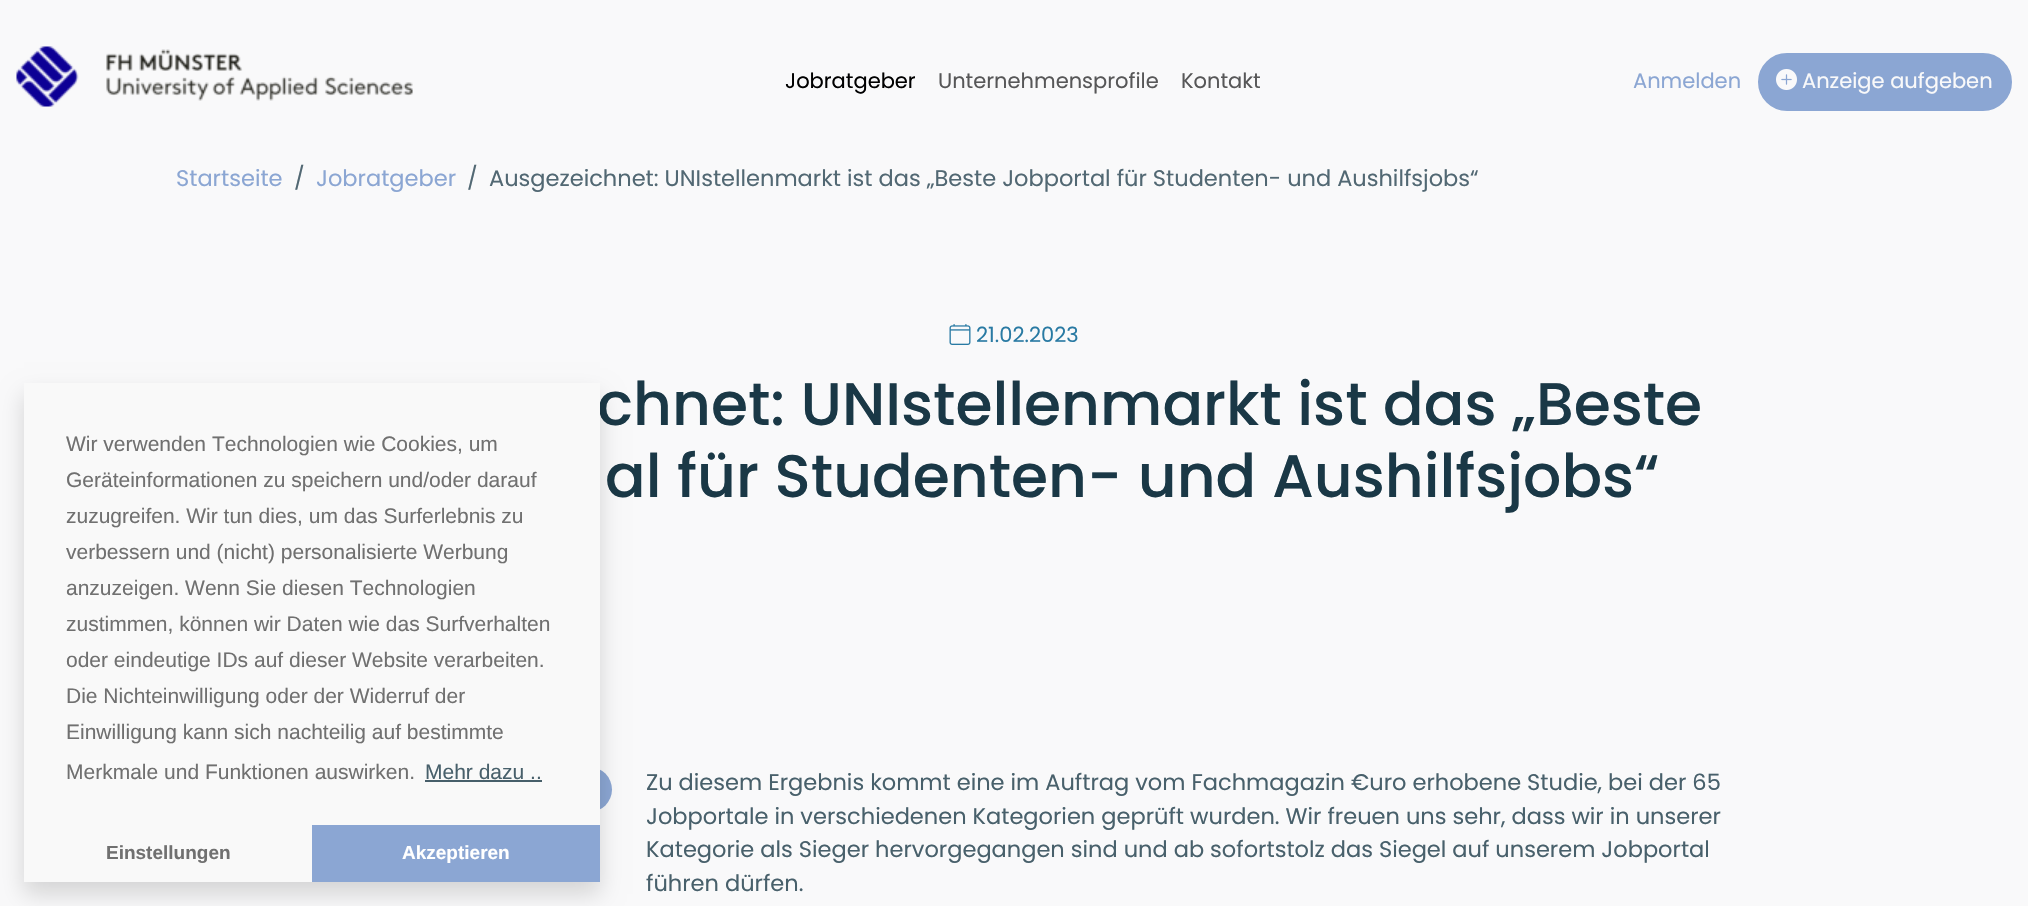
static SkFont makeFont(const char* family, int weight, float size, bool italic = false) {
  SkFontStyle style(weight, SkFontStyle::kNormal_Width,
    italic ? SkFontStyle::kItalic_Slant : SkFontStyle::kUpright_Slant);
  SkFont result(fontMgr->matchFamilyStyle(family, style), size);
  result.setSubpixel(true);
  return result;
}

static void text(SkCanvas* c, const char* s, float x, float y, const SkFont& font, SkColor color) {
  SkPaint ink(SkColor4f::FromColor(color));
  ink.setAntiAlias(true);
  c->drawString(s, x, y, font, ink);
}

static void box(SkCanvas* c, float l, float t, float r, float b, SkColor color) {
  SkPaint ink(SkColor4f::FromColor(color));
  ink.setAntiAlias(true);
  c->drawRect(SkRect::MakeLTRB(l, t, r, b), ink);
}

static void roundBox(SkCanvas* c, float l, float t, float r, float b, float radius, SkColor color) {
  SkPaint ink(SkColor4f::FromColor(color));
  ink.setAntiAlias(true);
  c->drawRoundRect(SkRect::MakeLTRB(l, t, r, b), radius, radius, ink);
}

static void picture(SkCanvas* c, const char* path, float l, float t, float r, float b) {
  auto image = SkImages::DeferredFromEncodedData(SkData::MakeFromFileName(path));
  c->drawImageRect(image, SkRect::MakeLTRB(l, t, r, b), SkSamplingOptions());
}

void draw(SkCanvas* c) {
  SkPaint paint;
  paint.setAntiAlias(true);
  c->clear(0xfff9f9fa);
  picture(c, "img_01.png", 16, 46, 413, 107);
  SkFont face1 = makeFont("Poppins", 400, 21);
  text(c, "Jobratgeber", 785, 88, face1, 0xff000000);
  text(c, "Unternehmensprofile", 938, 88, face1, 0xff575758);
  text(c, "Kontakt", 1181, 88, face1, 0xff575758);
  text(c, "Anmelden", 1633, 88, face1, 0xff8ba6d3);
  paint.setColor(0xff8ba6d3);
  c->drawRoundRect(SkRect::MakeLTRB(1759, 54, 2011, 110), 28, 28, paint);
  paint.setStyle(SkPaint::kStroke_Style);
  paint.setStrokeWidth(2);
  c->drawRoundRect(SkRect::MakeLTRB(1759, 54, 2011, 110), 28, 28, paint);
  picture(c, "img_02.png", 1776, 69, 1797, 90);
  text(c, "Anzeige aufgeben", 1802, 88, face1, 0xfff9f9fa);
  SkFont face2 = makeFont("Poppins", 400, 22.5f);
  text(c, "Startseite", 176, 186, face2, 0xff8ba6d3);
  text(c, "/", 294, 186, face2, 0xff526873);
  text(c, "Jobratgeber", 316, 186, face2, 0xff8ba6d3);
  text(c, "/", 467, 186, face2, 0xff526873);
  text(c, "Ausgezeichnet: UNIstellenmarkt ist das „Beste Jobportal für Studenten- und Aushilfsjobs“", 489, 186, face2, 0xff526873);
  picture(c, "img_03.png", 949, 324, 971, 345);
  text(c, "21.02.2023", 976, 342, face1, 0xff297aa3);
  SkFont face3 = makeFont("Poppins", 500, 60);
  text(c, "chnet: UNIstellenmarkt ist das „Beste", 597, 425, face3, 0xff1a3846);
  text(c, "al für Studenten- und Aushilfsjobs“", 605, 497, face3, 0xff1a3846);
  roundBox(c, 261, 767, 612, 812, 22.5f, 0xff8ba6d3);
  text(c, "Zu diesem Ergebnis kommt eine im Auftrag vom Fachmagazin €uro erhobene Studie, bei der 65", 646, 790, face2, 0xff48606b);
  text(c, "Jobportale in verschiedenen Kategorien geprüft wurden. Wir freuen uns sehr, dass wir in unserer", 646, 824, face2, 0xff48606b);
  text(c, "Kategorie als Sieger hervorgegangen sind und ab sofortstolz das Siegel auf unserem Jobportal", 646, 857, face2, 0xff48606b);
  text(c, "führen dürfen.", 646, 891, face2, 0xff48606b);
  paint.setStyle(SkPaint::kFill_Style);
  paint.setColor(0x26000000);
  paint.setMaskFilter(SkMaskFilter::MakeBlur(kNormal_SkBlurStyle, 11));
  c->drawRect(SkRect::MakeLTRB(24, 395, 600, 894), paint);
  paint.setMaskFilter(nullptr);
  box(c, 24, 383, 600, 882, 0xfff9f9f9);
  SkFont face4 = makeFont("Liberation Sans", 400, 21);
  text(c, "Wir verwenden Technologien wie Cookies, um", 66, 451, face4, 0xff707070);
  text(c, "Geräteinformationen zu speichern und/oder darauf", 66, 487, face4, 0xff707070);
  text(c, "zuzugreifen. Wir tun dies, um das Surferlebnis zu", 66, 523, face4, 0xff707070);
  text(c, "verbessern und (nicht) personalisierte Werbung", 66, 559, face4, 0xff707070);
  text(c, "anzuzeigen. Wenn Sie diesen Technologien", 66, 595, face4, 0xff707070);
  text(c, "zustimmen, können wir Daten wie das Surfverhalten", 66, 631, face4, 0xff707070);
  text(c, "oder eindeutige IDs auf dieser Website verarbeiten.", 66, 667, face4, 0xff707070);
  text(c, "Die Nichteinwilligung oder der Widerruf der", 66, 703, face4, 0xff707070);
  text(c, "Einwilligung kann sich nachteilig auf bestimmte", 66, 739, face4, 0xff707070);
  text(c, "Merkmale und Funktionen auswirken.", 66, 779, face4, 0xff707070);
  text(c, "Mehr dazu ..", 425, 779, face4, 0xff48606b);
  box(c, 425, 780, 542, 782, 0xff475f6a);
  SkFont face5 = makeFont("Liberation Sans", 700, 19);
  text(c, "Einstellungen", 106, 859, face5, 0xff707070);
  box(c, 312, 825, 600, 882, 0xff8ba6d3);
  text(c, "Akzeptieren", 402, 859, face5, 0xffffffff);
}
